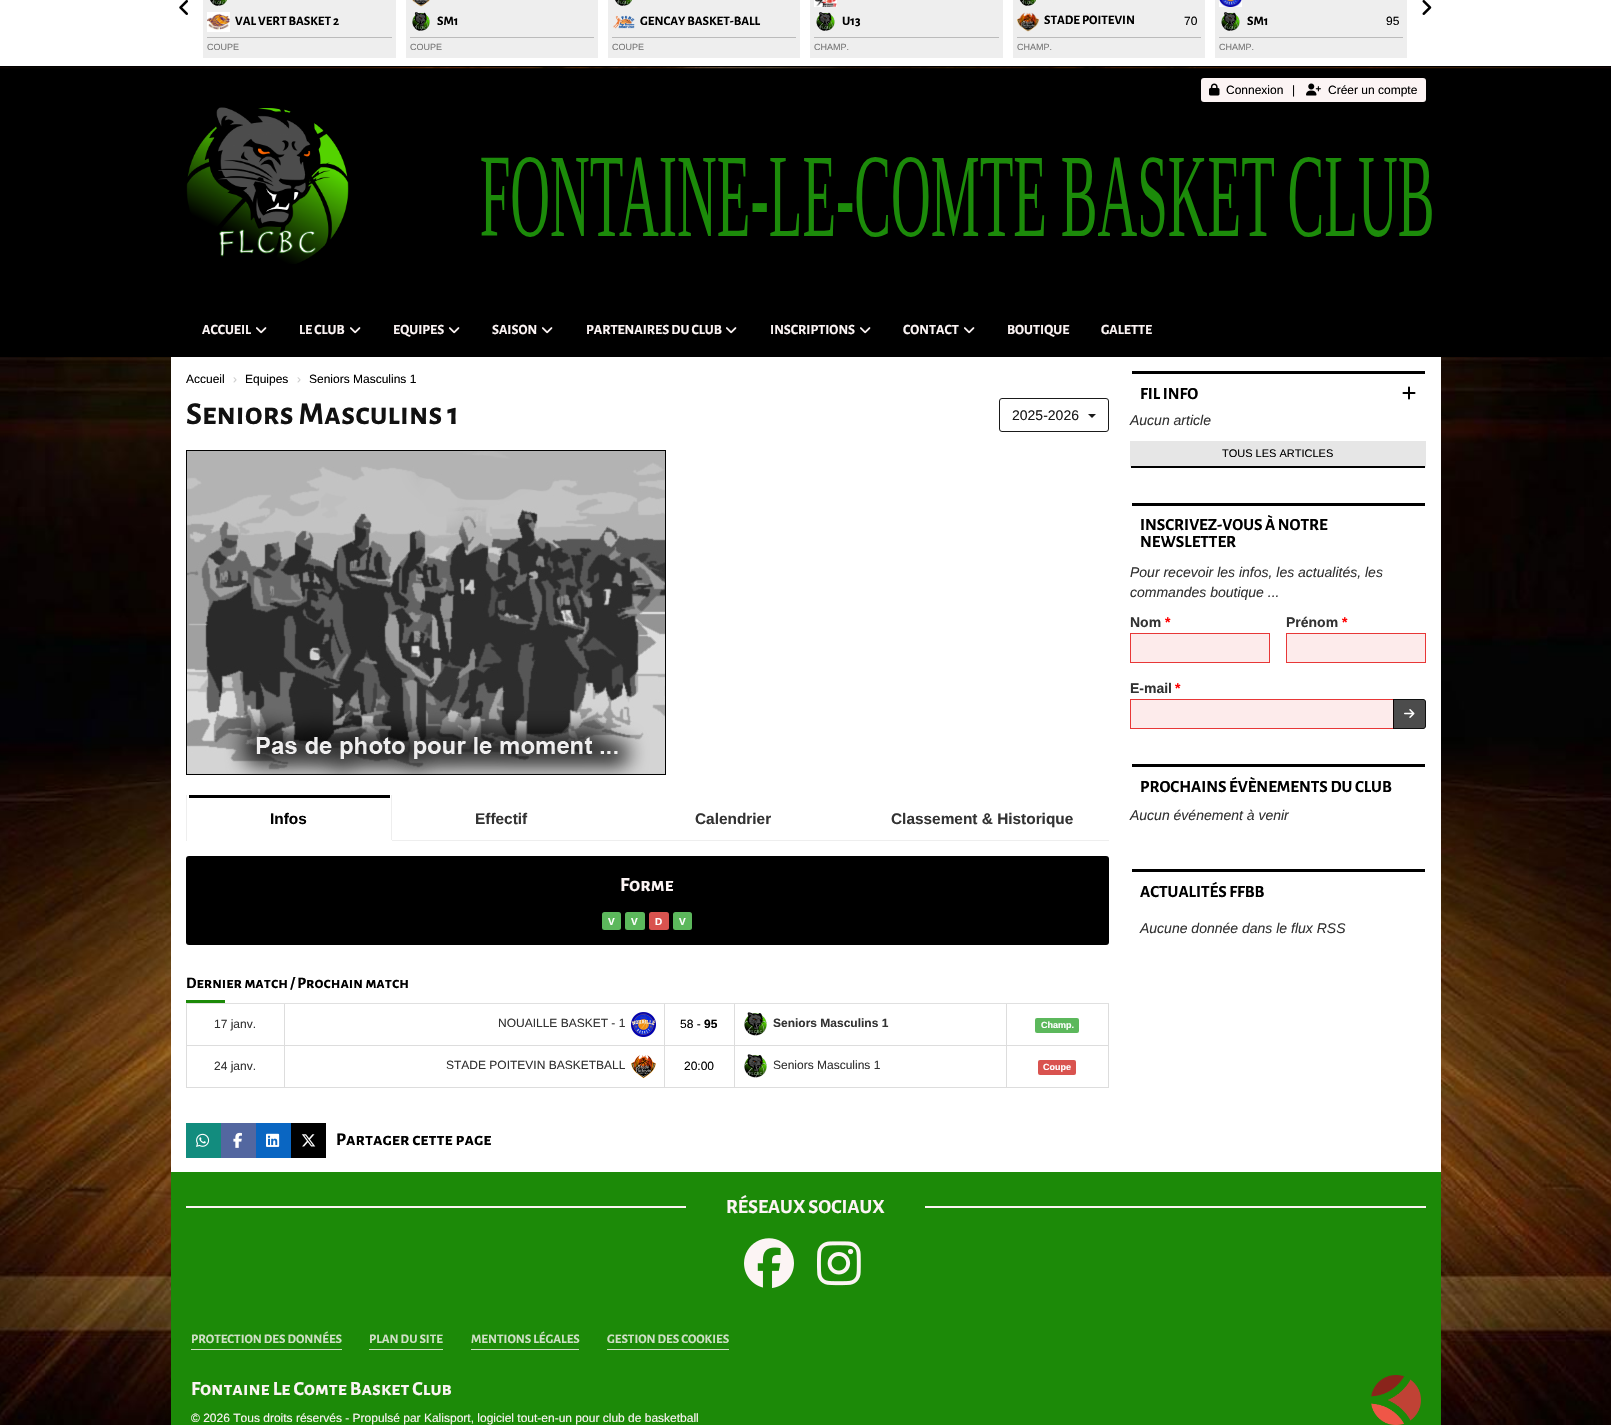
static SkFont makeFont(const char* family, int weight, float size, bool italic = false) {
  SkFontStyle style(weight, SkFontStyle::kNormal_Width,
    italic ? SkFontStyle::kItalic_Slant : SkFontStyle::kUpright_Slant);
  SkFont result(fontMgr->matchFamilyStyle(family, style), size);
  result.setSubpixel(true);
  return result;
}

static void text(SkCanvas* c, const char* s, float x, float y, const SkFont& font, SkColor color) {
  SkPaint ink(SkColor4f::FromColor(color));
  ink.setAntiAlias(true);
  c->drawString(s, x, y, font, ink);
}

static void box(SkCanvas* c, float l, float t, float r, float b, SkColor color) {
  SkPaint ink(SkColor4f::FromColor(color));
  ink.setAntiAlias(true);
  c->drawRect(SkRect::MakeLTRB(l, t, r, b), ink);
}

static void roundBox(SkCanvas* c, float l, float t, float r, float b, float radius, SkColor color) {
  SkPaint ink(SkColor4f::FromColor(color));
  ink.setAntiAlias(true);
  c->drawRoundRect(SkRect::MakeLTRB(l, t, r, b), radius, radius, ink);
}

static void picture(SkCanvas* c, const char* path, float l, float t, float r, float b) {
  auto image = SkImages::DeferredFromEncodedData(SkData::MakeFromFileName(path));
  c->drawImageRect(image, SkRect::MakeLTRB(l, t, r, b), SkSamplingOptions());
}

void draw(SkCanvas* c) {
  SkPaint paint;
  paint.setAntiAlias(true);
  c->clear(0xffffffff);
  picture(c, "img_01.png", 0, 67, 1611, 1425);
  box(c, 0, 66, 1611, 67, 0xff000000);
  picture(c, "img_02.png", 179, 0, 188, 15);
  picture(c, "img_03.png", 1422, 0, 1432, 15);
  box(c, 203, 0, 396, 58, 0xffeeeeee);
  picture(c, "img_04.png", 210, 0, 227, 6);
  picture(c, "img_05.png", 207, 12, 230, 32);
  SkFont face1 = makeFont("Alegreya Sans SC", 700, 13);
  text(c, "VAL VERT BASKET 2", 235, 25, face1, 0xff000000);
  box(c, 207, 37, 392, 38, 0xffbbbbbb);
  SkFont face2 = makeFont("Liberation Sans", 400, 9);
  text(c, "COUPE", 207, 50, face2, 0xff777777);
  box(c, 406, 0, 598, 58, 0xffeeeeee);
  picture(c, "img_06.png", 412, 0, 430, 7);
  picture(c, "img_07.png", 412, 12, 430, 31);
  text(c, "SM1", 437, 25, face1, 0xff000000);
  box(c, 410, 37, 594, 38, 0xffbbbbbb);
  text(c, "COUPE", 410, 50, face2, 0xff777777);
  box(c, 608, 0, 800, 58, 0xffeeeeee);
  picture(c, "img_04.png", 615, 0, 632, 6);
  picture(c, "img_08.png", 613, 15, 635, 29);
  text(c, "GENCAY BASKET-BALL", 640, 25, face1, 0xff000000);
  box(c, 612, 37, 796, 38, 0xffbbbbbb);
  text(c, "COUPE", 612, 50, face2, 0xff777777);
  box(c, 810, 0, 1003, 58, 0xffeeeeee);
  picture(c, "img_09.png", 814, 0, 837, 7);
  picture(c, "img_10.png", 816, 12, 835, 31);
  text(c, "U13", 842, 25, face1, 0xff000000);
  box(c, 814, 37, 999, 38, 0xffbbbbbb);
  text(c, "CHAMP.", 814, 50, face2, 0xff777777);
  box(c, 1013, 0, 1205, 58, 0xffeeeeee);
  picture(c, "img_11.png", 1019, 0, 1036, 6);
  picture(c, "img_12.png", 1017, 12, 1039, 32);
  text(c, "STADE POITEVIN", 1044, 24, face1, 0xff000000);
  SkFont face3 = makeFont("Liberation Sans", 400, 12);
  text(c, "70", 1184, 25, face3, 0xff000000);
  box(c, 1017, 37, 1201, 38, 0xffbbbbbb);
  text(c, "CHAMP.", 1017, 50, face2, 0xff777777);
  box(c, 1215, 0, 1407, 58, 0xffeeeeee);
  picture(c, "img_13.png", 1219, 0, 1242, 7);
  picture(c, "img_10.png", 1221, 12, 1240, 31);
  text(c, "SM1", 1247, 25, face1, 0xff000000);
  text(c, "95", 1386, 25, face3, 0xff000000);
  box(c, 1219, 37, 1403, 38, 0xffbbbbbb);
  text(c, "CHAMP.", 1219, 50, face2, 0xff777777);
  picture(c, "img_14.png", 0, 68, 1611, 357);
  roundBox(c, 1201, 78, 1426, 102, 3, 0xfffcf4f4);
  picture(c, "img_15.png", 1209, 83, 1220, 96);
  text(c, "Connexion", 1226, 94, face3, 0xff000000);
  text(c, "|", 1292, 94, face3, 0xff000000);
  picture(c, "img_16.png", 1306, 83, 1321, 96);
  text(c, "Créer un compte", 1328, 94, face3, 0xff000000);
  picture(c, "img_17.png", 186, 107, 349, 264);
  SkFont face4 = makeFont("Alegreya Sans SC", 700, 14);
  text(c, "ACCUEIL", 202, 334, face4, 0xfffcf4f4);
  picture(c, "img_18.png", 256, 327, 267, 334);
  text(c, "LE CLUB", 299, 334, face4, 0xfffcf4f4);
  picture(c, "img_18.png", 350, 327, 361, 334);
  text(c, "EQUIPES", 393, 334, face4, 0xfffcf4f4);
  picture(c, "img_18.png", 449, 327, 460, 334);
  text(c, "SAISON", 492, 334, face4, 0xfffcf4f4);
  picture(c, "img_18.png", 542, 327, 553, 334);
  text(c, "PARTENAIRES DU CLUB", 586, 334, face4, 0xfffcf4f4);
  picture(c, "img_18.png", 726, 327, 737, 334);
  text(c, "INSCRIPTIONS", 770, 334, face4, 0xfffcf4f4);
  picture(c, "img_18.png", 860, 327, 871, 334);
  text(c, "CONTACT", 903, 334, face4, 0xfffcf4f4);
  picture(c, "img_18.png", 964, 327, 975, 334);
  text(c, "BOUTIQUE", 1007, 334, face4, 0xfffcf4f4);
  text(c, "GALETTE", 1101, 334, face4, 0xfffcf4f4);
  box(c, 171, 357, 1441, 1172, 0xffffffff);
  text(c, "Accueil", 186, 383, face3, 0xff000000);
  text(c, "›", 233, 383, face3, 0xffcccccc);
  text(c, "Equipes", 245, 383, face3, 0xff000000);
  text(c, "›", 297, 383, face3, 0xffcccccc);
  text(c, "Seniors Masculins 1", 309, 383, face3, 0xff000000);
  SkFont face5 = makeFont("Alegreya Sans SC", 700, 32);
  text(c, "Seniors Masculins 1", 186, 424, face5, 0xff111111);
  paint.setStyle(SkPaint::kStroke_Style);
  paint.setStrokeWidth(1);
  paint.setColor(0xff1a1a1a);
  c->drawRoundRect(SkRect::MakeLTRB(999.5f, 398.5f, 1108.5f, 431.5f), 2.5f, 2.5f, paint);
  SkFont face6 = makeFont("Liberation Sans", 400, 14);
  text(c, "2025-2026", 1012, 420, face6, 0xff1a1a1a);
  paint.setStyle(SkPaint::kFill_Style);
  c->drawPath(SkPathBuilder().moveTo(1088, 414).lineTo(1096, 414).lineTo(1092, 418).close().detach(), paint);
  picture(c, "img_19.png", 186, 450, 666, 775);
  box(c, 391, 795, 392, 841, 0xffeeeeee);
  box(c, 391, 840, 392, 841, 0xffffffff);
  box(c, 186, 795, 187, 841, 0xffeeeeee);
  box(c, 189, 795, 390, 798, 0xff000000);
  SkFont face7 = makeFont("Liberation Sans", 700, 15.4f);
  text(c, "Infos", 270, 824, face7, 0xff000000);
  box(c, 392, 840, 1109, 841, 0xffeeeeee);
  text(c, "Effectif", 475, 824, face7, 0xff333333);
  text(c, "Calendrier", 695, 824, face7, 0xff333333);
  text(c, "Classement & Historique", 891, 824, face7, 0xff333333);
  roundBox(c, 186, 856, 1109, 945, 3, 0xff000000);
  SkFont face8 = makeFont("Alegreya Sans SC", 700, 20);
  text(c, "Forme", 620, 891, face8, 0xfffcf4f4);
  roundBox(c, 602, 912, 621, 930, 2.5f, 0xff5cb85c);
  SkFont face9 = makeFont("Liberation Sans", 700, 10);
  text(c, "V", 608, 925, face9, 0xffffffff);
  roundBox(c, 625, 912, 645, 930, 2.5f, 0xff5cb85c);
  text(c, "V", 631, 925, face9, 0xffffffff);
  roundBox(c, 649, 912, 669, 930, 2.5f, 0xffd9534f);
  text(c, "D", 655, 925, face9, 0xffffffff);
  roundBox(c, 673, 912, 692, 930, 2.5f, 0xff5cb85c);
  text(c, "V", 679, 925, face9, 0xffffffff);
  box(c, 1108, 1004, 1109, 1088, 0xffdddddd);
  box(c, 186, 1087, 1109, 1088, 0xffdddddd);
  box(c, 186, 1004, 187, 1088, 0xffdddddd);
  box(c, 1006, 1045, 1109, 1046, 0xffdddddd);
  box(c, 1006, 1045, 1007, 1088, 0xffdddddd);
  box(c, 734, 1045, 1007, 1046, 0xffdddddd);
  box(c, 734, 1045, 735, 1088, 0xffdddddd);
  box(c, 664, 1045, 735, 1046, 0xffdddddd);
  box(c, 664, 1045, 665, 1088, 0xffdddddd);
  box(c, 284, 1045, 665, 1046, 0xffdddddd);
  box(c, 284, 1045, 285, 1088, 0xffdddddd);
  box(c, 186, 1045, 285, 1046, 0xffdddddd);
  box(c, 284, 1003, 285, 1046, 0xffdddddd);
  box(c, 664, 1003, 665, 1046, 0xffdddddd);
  box(c, 734, 1003, 735, 1046, 0xffdddddd);
  box(c, 1006, 1003, 1007, 1046, 0xffdddddd);
  box(c, 186, 1003, 1109, 1004, 0xffe0e0e0);
  SkFont face10 = makeFont("Alegreya Sans SC", 700, 16);
  text(c, "Dernier match / Prochain match", 186, 988, face10, 0xff000000);
  box(c, 186, 1000, 225, 1003, 0xff1c8a08);
  text(c, "17 janv.", 214, 1028, face3, 0xff333333);
  text(c, "NOUAILLE BASKET - 1", 498, 1027, face3, 0xff333333);
  picture(c, "img_20.png", 631, 1012, 656, 1037);
  text(c, "58 -", 680, 1028, face3, 0xff000000);
  SkFont face11 = makeFont("Liberation Sans", 700, 12);
  text(c, "95", 704, 1028, face11, 0xff000000);
  picture(c, "img_21.png", 744, 1012, 767, 1036);
  text(c, "Seniors Masculins 1", 773, 1027, face11, 0xff333333);
  roundBox(c, 1035, 1018, 1079, 1033, 2, 0xff5cb85c);
  SkFont face12 = makeFont("Liberation Sans", 700, 9);
  text(c, "Champ.", 1041, 1028, face12, 0xffffffff);
  text(c, "24 janv.", 214, 1070, face3, 0xff333333);
  text(c, "STADE POITEVIN BASKETBALL", 446, 1069, face3, 0xff333333);
  picture(c, "img_22.png", 631, 1055, 656, 1079);
  text(c, "20:00", 684, 1070, face3, 0xff000000);
  picture(c, "img_23.png", 744, 1054, 767, 1078);
  text(c, "Seniors Masculins 1", 773, 1069, face3, 0xff333333);
  roundBox(c, 1038, 1060, 1076, 1075, 2, 0xffd9534f);
  text(c, "Coupe", 1043, 1070, face12, 0xffffffff);
  box(c, 186, 1123, 221, 1158, 0xff128c7e);
  picture(c, "img_24.png", 196, 1133, 210, 1147);
  box(c, 221, 1123, 256, 1158, 0xff5367a0);
  picture(c, "img_25.png", 233, 1132, 242, 1148);
  box(c, 256, 1123, 291, 1158, 0xff0a66c2);
  picture(c, "img_26.png", 266, 1133, 280, 1147);
  box(c, 291, 1123, 326, 1158, 0xff000000);
  picture(c, "img_27.png", 301, 1134, 316, 1147);
  SkFont face13 = makeFont("Alegreya Sans SC", 700, 18);
  text(c, "Partager cette page", 336, 1145, face13, 0xff000000);
  box(c, 1132, 371, 1425, 374, 0xff000000);
  SkFont face14 = makeFont("Alegreya Sans SC", 700, 17);
  text(c, "FIL INFO", 1140, 399, face14, 0xff000000);
  picture(c, "img_28.png", 1402, 386, 1416, 400);
  SkFont face15 = makeFont("Liberation Sans", 400, 14, true);
  text(c, "Aucun article", 1130, 425, face15, 0xff333333);
  paint.setColor(0xffe6e6e6);
  c->drawPath(SkPathBuilder().moveTo(1130, 441).lineTo(1426, 441).lineTo(1426, 466).cubicTo(1426, 467, 1425, 468, 1424, 468).lineTo(1132, 468).cubicTo(1131, 468, 1130, 467, 1130, 466).close().detach(), paint);
  box(c, 1131, 466, 1425, 468, 0xff000000);
  SkFont face16 = makeFont("Liberation Sans", 400, 11);
  text(c, "TOUS LES ARTICLES", 1222, 457, face16, 0xff000000);
  box(c, 1132, 503, 1425, 506, 0xff000000);
  text(c, "INSCRIVEZ-VOUS À NOTRE", 1140, 530, face14, 0xff000000);
  text(c, "NEWSLETTER", 1140, 547, face14, 0xff000000);
  text(c, "Pour recevoir les infos, les actualités, les", 1130, 577, face15, 0xff333333);
  text(c, "commandes boutique ...", 1130, 597, face15, 0xff333333);
  SkFont face17 = makeFont("Liberation Sans", 700, 14);
  text(c, "Nom", 1130, 627, face17, 0xff333333);
  text(c, "*", 1165, 627, face17, 0xffff0000);
  paint.setColor(0xfffdebeb);
  c->drawRect(SkRect::MakeLTRB(1130.5f, 633.5f, 1269.5f, 662.5f), paint);
  paint.setStyle(SkPaint::kStroke_Style);
  paint.setColor(0xffe83737);
  c->drawRect(SkRect::MakeLTRB(1130.5f, 633.5f, 1269.5f, 662.5f), paint);
  text(c, "Prénom", 1286, 627, face17, 0xff333333);
  text(c, "*", 1342, 627, face17, 0xffff0000);
  paint.setStyle(SkPaint::kFill_Style);
  paint.setColor(0xfffdebeb);
  c->drawRect(SkRect::MakeLTRB(1286.5f, 633.5f, 1425.5f, 662.5f), paint);
  paint.setStyle(SkPaint::kStroke_Style);
  paint.setColor(0xffe83737);
  c->drawRect(SkRect::MakeLTRB(1286.5f, 633.5f, 1425.5f, 662.5f), paint);
  text(c, "E-mail", 1130, 693, face17, 0xff333333);
  text(c, "*", 1175, 693, face17, 0xffff0000);
  paint.setStyle(SkPaint::kFill_Style);
  paint.setColor(0xfffdebeb);
  c->drawRect(SkRect::MakeLTRB(1130.5f, 699.5f, 1393.5f, 728.5f), paint);
  paint.setStyle(SkPaint::kStroke_Style);
  paint.setColor(0xffe83737);
  c->drawRect(SkRect::MakeLTRB(1130.5f, 699.5f, 1393.5f, 728.5f), paint);
  paint.setStyle(SkPaint::kFill_Style);
  paint.setColor(0xb3000000);
  c->drawPath(SkPathBuilder().moveTo(1393, 699).lineTo(1423, 699).cubicTo(1424.5f, 699, 1426, 700.5f, 1426, 702).lineTo(1426, 726).cubicTo(1426, 727.5f, 1424.5f, 729, 1423, 729).lineTo(1393, 729).close().detach(), paint);
  paint.setStyle(SkPaint::kStroke_Style);
  paint.setColor(0xcc000000);
  c->drawPath(SkPathBuilder().moveTo(1393.5f, 699.5f).lineTo(1423, 699.5f).cubicTo(1424.5f, 699.5f, 1425.5f, 700.5f, 1425.5f, 702).lineTo(1425.5f, 726).cubicTo(1425.5f, 727.5f, 1424.5f, 728.5f, 1423, 728.5f).lineTo(1393.5f, 728.5f).close().detach(), paint);
  picture(c, "img_29.png", 1404, 709, 1415, 718);
  box(c, 1132, 764, 1425, 767, 0xff000000);
  text(c, "PROCHAINS ÉVÈNEMENTS DU CLUB", 1140, 792, face14, 0xff000000);
  text(c, "Aucun événement à venir", 1130, 820, face15, 0xff333333);
  box(c, 1132, 869, 1425, 872, 0xff000000);
  text(c, "ACTUALITÉS FFBB", 1140, 897, face14, 0xff000000);
  text(c, "Aucune donnée dans le flux RSS", 1140, 933, face15, 0xff333333);
  box(c, 171, 1172, 1441, 1425, 0xff1c8a08);
  box(c, 186, 1206, 1426, 1208, 0xfffcf4f4);
  box(c, 686, 1206, 925, 1208, 0xff1c8a08);
  text(c, "RÉSEAUX SOCIAUX", 726, 1213, face8, 0xfffcf4f4);
  picture(c, "img_30.png", 744, 1238, 794, 1288);
  picture(c, "img_31.png", 817, 1241, 861, 1286);
  box(c, 191, 1349, 342, 1350, 0xffcfdfc5);
  text(c, "PROTECTION DES DONNÉES", 191, 1343, face1, 0xffcfdfc5);
  box(c, 369, 1349, 443, 1350, 0xffcfdfc5);
  text(c, "PLAN DU SITE", 369, 1343, face1, 0xffcfdfc5);
  box(c, 471, 1349, 579, 1350, 0xffcfdfc5);
  text(c, "MENTIONS LÉGALES", 471, 1343, face1, 0xffcfdfc5);
  box(c, 607, 1349, 729, 1350, 0xffcfdfc5);
  text(c, "GESTION DES COOKIES", 607, 1343, face1, 0xffcfdfc5);
  text(c, "Fontaine Le Comte Basket Club", 191, 1395, face8, 0xfffcf4f4);
  text(c, "© 2026 Tous droits réservés - Propulsé par Kalisport, logiciel tout-en-un pour club de basketball", 191, 1422, face3, 0xfffcf4f4);
  picture(c, "img_32.png", 1371, 1375, 1421, 1425);
}
